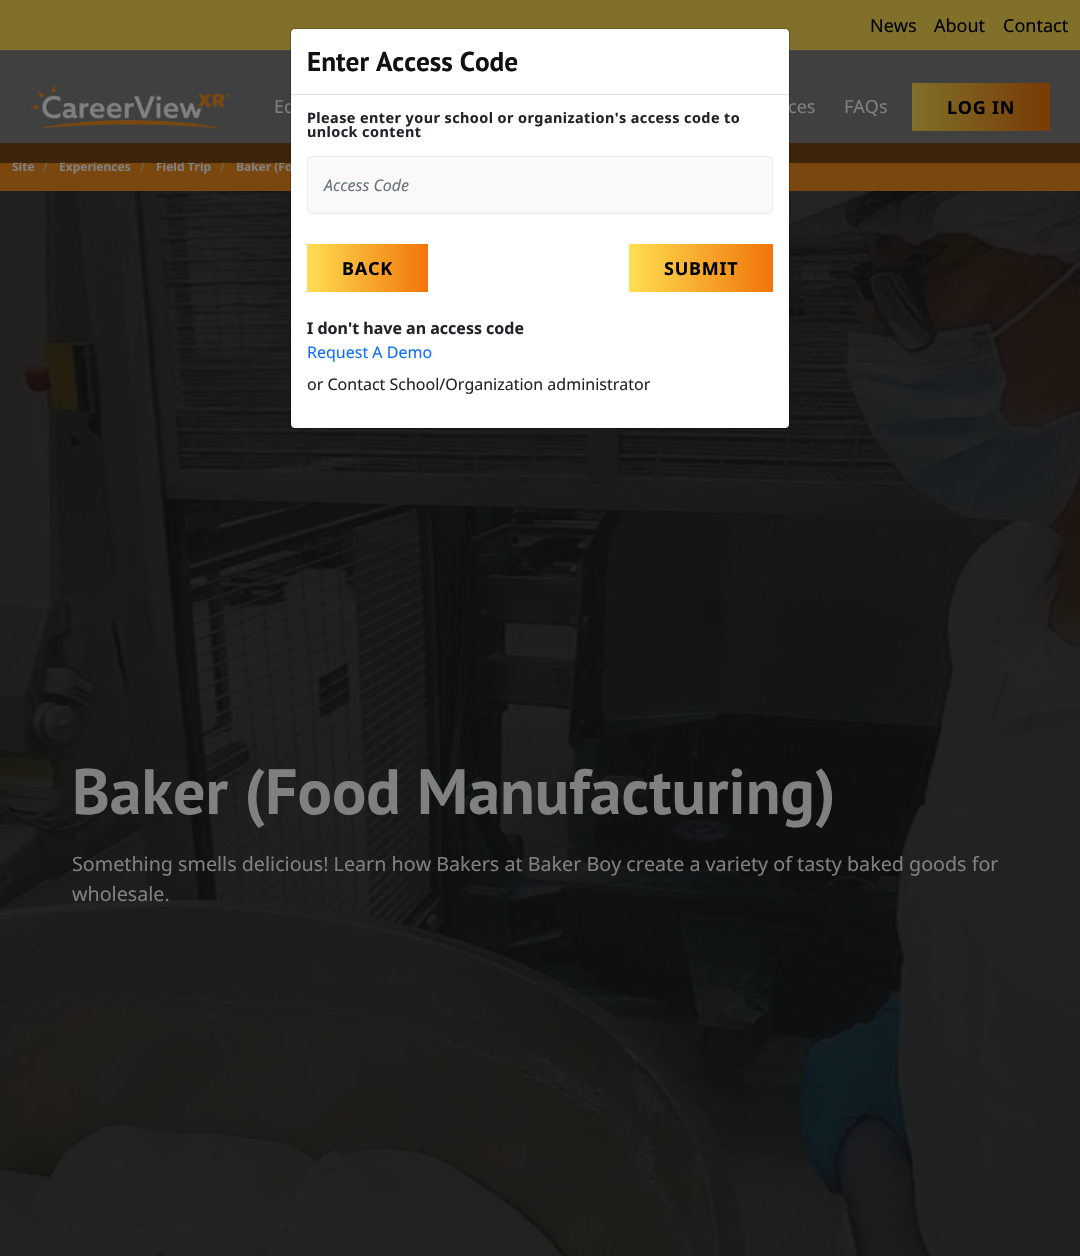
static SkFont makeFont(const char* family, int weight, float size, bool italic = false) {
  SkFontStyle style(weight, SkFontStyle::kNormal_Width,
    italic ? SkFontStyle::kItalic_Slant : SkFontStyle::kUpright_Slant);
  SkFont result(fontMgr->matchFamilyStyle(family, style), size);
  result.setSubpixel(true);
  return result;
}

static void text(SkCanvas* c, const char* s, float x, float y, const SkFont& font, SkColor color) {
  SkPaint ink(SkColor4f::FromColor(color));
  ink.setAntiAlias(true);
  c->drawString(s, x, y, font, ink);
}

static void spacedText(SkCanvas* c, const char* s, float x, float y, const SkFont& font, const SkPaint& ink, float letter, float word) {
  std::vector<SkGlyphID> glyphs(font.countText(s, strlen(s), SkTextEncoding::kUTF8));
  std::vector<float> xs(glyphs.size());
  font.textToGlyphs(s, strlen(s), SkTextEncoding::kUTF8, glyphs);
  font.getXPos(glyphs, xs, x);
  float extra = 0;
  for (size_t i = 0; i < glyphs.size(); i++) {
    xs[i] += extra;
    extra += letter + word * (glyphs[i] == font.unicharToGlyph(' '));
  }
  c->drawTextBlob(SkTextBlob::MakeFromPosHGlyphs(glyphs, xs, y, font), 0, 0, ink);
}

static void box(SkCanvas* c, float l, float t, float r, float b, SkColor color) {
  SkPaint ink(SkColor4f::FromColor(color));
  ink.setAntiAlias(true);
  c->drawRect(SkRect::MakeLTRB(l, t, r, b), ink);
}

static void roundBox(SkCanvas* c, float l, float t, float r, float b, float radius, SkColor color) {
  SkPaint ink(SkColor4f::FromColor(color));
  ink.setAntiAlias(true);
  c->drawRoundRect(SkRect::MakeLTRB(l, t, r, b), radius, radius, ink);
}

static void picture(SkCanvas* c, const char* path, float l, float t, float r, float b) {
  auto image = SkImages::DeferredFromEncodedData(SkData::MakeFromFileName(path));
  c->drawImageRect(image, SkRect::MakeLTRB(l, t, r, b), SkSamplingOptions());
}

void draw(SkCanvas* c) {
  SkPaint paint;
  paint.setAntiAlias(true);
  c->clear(0xff808080);
  paint.setStyle(SkPaint::kStroke_Style);
  paint.setStrokeWidth(1);
  paint.setColor(0xff464646);
  c->drawRect(SkRect::MakeLTRB(-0.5f, -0.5f, 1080.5f, 50.5f), paint);
  box(c, 0, 0, 1080, 50, 0xff80702a);
  SkFont face1 = makeFont("Noto Sans", 400, 18);
  text(c, "News", 870, 32, face1, 0xff000000);
  text(c, "About", 934, 32, face1, 0xff000000);
  text(c, "Contact", 1003, 32, face1, 0xff000000);
  box(c, 0, 143, 1080, 191, 0xff7a480f);
  SkFont face2 = makeFont("Noto Sans", 700, 12);
  text(c, "Site", 12, 171, face2, 0xff808080);
  text(c, "/", 43, 171, face2, 0xff7c5e3c);
  text(c, "Experiences", 59, 171, face2, 0xff808080);
  text(c, "/", 140, 171, face2, 0xff7c5e3c);
  text(c, "Field Trip", 156, 171, face2, 0xff808080);
  text(c, "/", 220, 171, face2, 0xff7c5e3c);
  text(c, "Baker (Fo", 236, 171, face2, 0xff808080);
  picture(c, "img_01.png", 0, 191, 1080, 1256);
  box(c, 0, 51, 1080, 163, 0x80000000);
  text(c, "Ed", 274, 113, face1, 0xff808080);
  text(c, "ces", 788, 113, face1, 0xff808080);
  roundBox(c, 291, 29, 789, 428, 4, 0xffffffff);
  paint.setColor(0x33000000);
  c->drawRoundRect(SkRect::MakeLTRB(290.5f, 28.5f, 789.5f, 428.5f), 4.5f, 4.5f, paint);
  box(c, 291, 94, 789, 95, 0xffdee2e6);
  SkFont face3 = makeFont("PT Sans", 700, 27.25f);
  text(c, "Enter Access Code", 307, 71, face3, 0xff111111);
  SkFont face4 = makeFont("Noto Sans", 700, 14.4f);
  paint.setStyle(SkPaint::kFill_Style);
  paint.setColor(0xff212529);
  spacedText(c, "Please enter your school or organization's access code to", 307, 123, face4, paint, 0.43f, 0);
  spacedText(c, "unlock content", 307, 137, face4, paint, 0.43f, 0);
  paint.setColor(0xfff9f9f9);
  c->drawRoundRect(SkRect::MakeLTRB(307.5f, 156.5f, 772.5f, 213.5f), 3.5f, 3.5f, paint);
  paint.setStyle(SkPaint::kStroke_Style);
  paint.setColor(0xffebebeb);
  c->drawRoundRect(SkRect::MakeLTRB(307.5f, 156.5f, 772.5f, 213.5f), 3.5f, 3.5f, paint);
  SkFont face5 = makeFont("Noto Sans", 400, 16, true);
  text(c, "Access Code", 324, 191, face5, 0xff6c757d);
  paint.setStyle(SkPaint::kFill_Style);
  {
    const SkColor colors[] = {0xffffdf52, 0xfff8a92d, 0xfff0750a};
    const float stops[] = {0, 0.5f, 1};
    const SkPoint ends[] = {{307, 268}, {428, 268}};
    paint.setShader(SkGradientShader::MakeLinear(ends, colors, stops, 3, SkTileMode::kClamp));
    paint.setAlpha(255);
  }
  c->drawRect(SkRect::MakeLTRB(307, 244, 428, 292), paint);
  SkFont face6 = makeFont("Noto Sans", 700, 18);
  paint.setShader(nullptr);
  paint.setColor(0xff000000);
  spacedText(c, "BACK", 342, 275, face6, paint, 0.75f, 0);
  {
    const SkColor colors[] = {0xffffdf52, 0xfff8a92d, 0xfff0750a};
    const float stops[] = {0, 0.5f, 1};
    const SkPoint ends[] = {{629, 268}, {773, 268}};
    paint.setShader(SkGradientShader::MakeLinear(ends, colors, stops, 3, SkTileMode::kClamp));
    paint.setAlpha(255);
  }
  c->drawRect(SkRect::MakeLTRB(629, 244, 773, 292), paint);
  paint.setShader(nullptr);
  paint.setColor(0xff000000);
  spacedText(c, "SUBMIT", 664, 275, face6, paint, 0.75f, 0);
  SkFont face7 = makeFont("Noto Sans", 700, 16);
  text(c, "I don't have an access code", 307, 334, face7, 0xff212529);
  SkFont face8 = makeFont("Noto Sans", 400, 16);
  text(c, "Request A Demo", 307, 358, face8, 0xff0d6efd);
  text(c, "or Contact School/Organization administrator", 307, 390, face8, 0xff212529);
  SkFont face9 = makeFont("PT Sans", 700, 64);
  text(c, "Baker (Food Manufacturing)", 72, 814, face9, 0xff808080);
  SkFont face10 = makeFont("Noto Sans", 400, 19.7f);
  text(c, "Something smells delicious! Learn how Bakers at Baker Boy create a variety of tasty baked goods for", 72, 871, face10, 0xff808080);
  text(c, "wholesale.", 72, 901, face10, 0xff808080);
  picture(c, "img_02.png", 31, 84, 230, 129);
  text(c, "FAQs", 844, 113, face1, 0xff808080);
  {
    const SkColor colors[] = {0xff807029, 0xff7c5517, 0xff783b05};
    const float stops[] = {0, 0.5f, 1};
    const SkPoint ends[] = {{912, 107}, {1050, 107}};
    paint.setShader(SkGradientShader::MakeLinear(ends, colors, stops, 3, SkTileMode::kClamp));
    paint.setAlpha(255);
  }
  c->drawRect(SkRect::MakeLTRB(912, 83, 1050, 131), paint);
  paint.setShader(nullptr);
  paint.setColor(0xff000000);
  spacedText(c, "LOG IN", 947, 114, face6, paint, 0.75f, 0);
}
